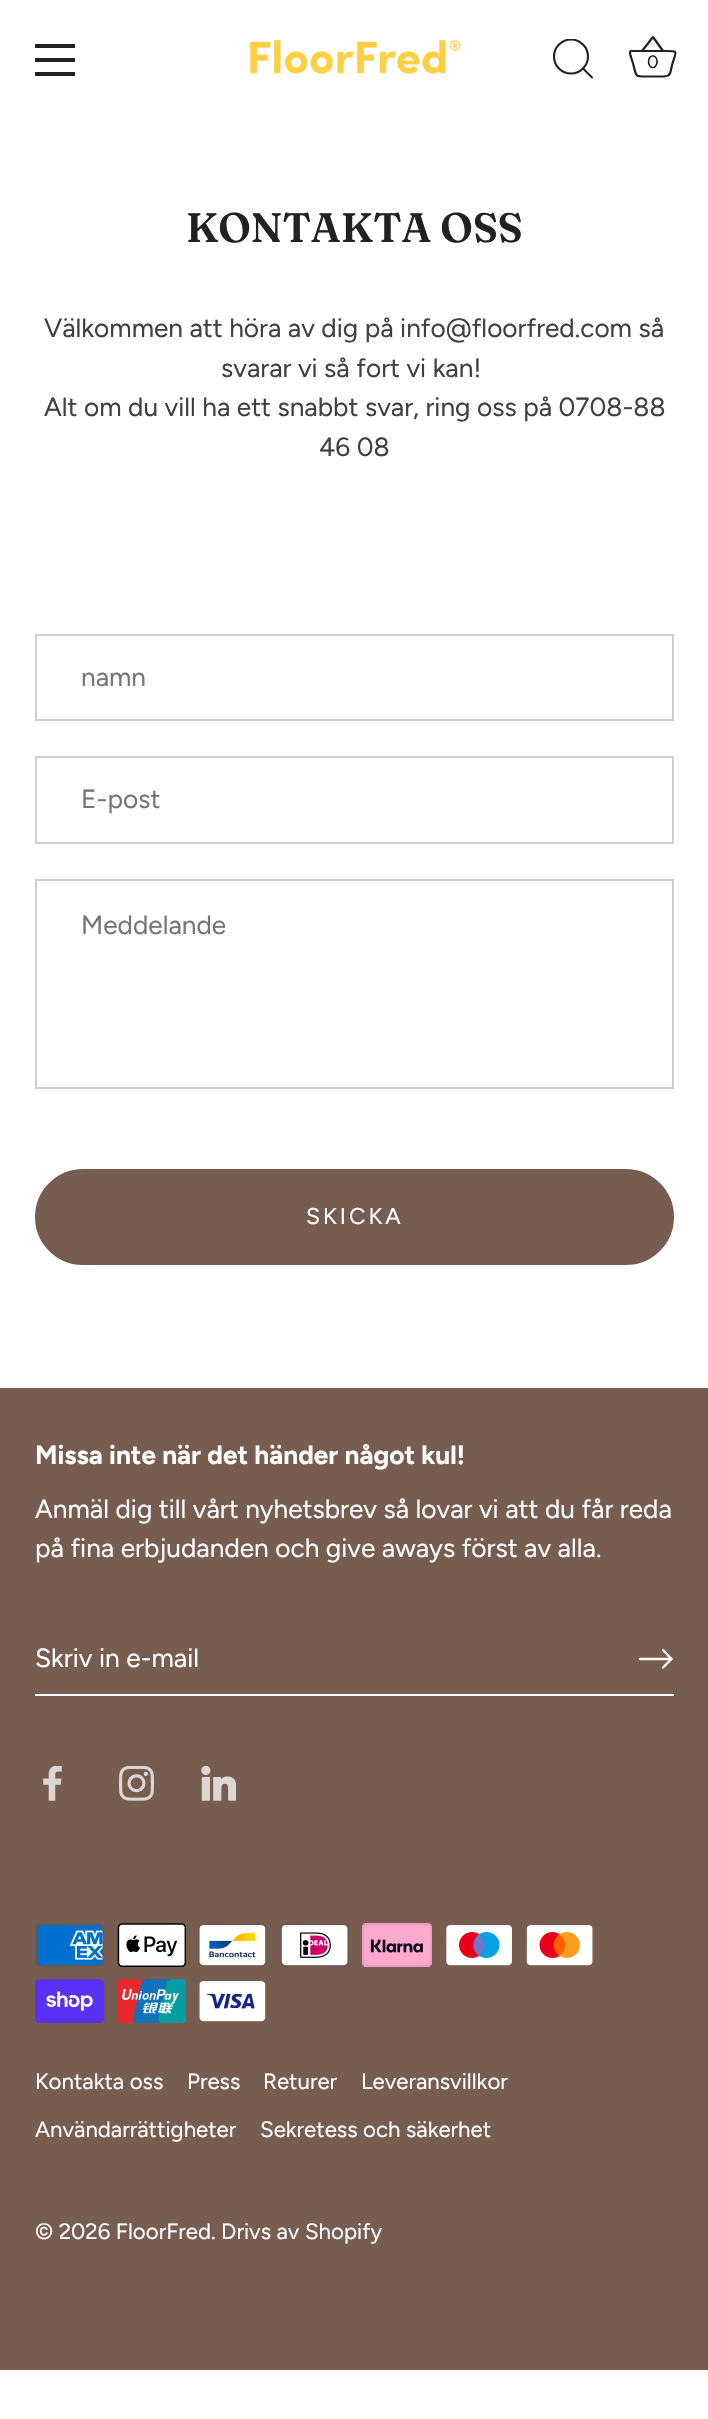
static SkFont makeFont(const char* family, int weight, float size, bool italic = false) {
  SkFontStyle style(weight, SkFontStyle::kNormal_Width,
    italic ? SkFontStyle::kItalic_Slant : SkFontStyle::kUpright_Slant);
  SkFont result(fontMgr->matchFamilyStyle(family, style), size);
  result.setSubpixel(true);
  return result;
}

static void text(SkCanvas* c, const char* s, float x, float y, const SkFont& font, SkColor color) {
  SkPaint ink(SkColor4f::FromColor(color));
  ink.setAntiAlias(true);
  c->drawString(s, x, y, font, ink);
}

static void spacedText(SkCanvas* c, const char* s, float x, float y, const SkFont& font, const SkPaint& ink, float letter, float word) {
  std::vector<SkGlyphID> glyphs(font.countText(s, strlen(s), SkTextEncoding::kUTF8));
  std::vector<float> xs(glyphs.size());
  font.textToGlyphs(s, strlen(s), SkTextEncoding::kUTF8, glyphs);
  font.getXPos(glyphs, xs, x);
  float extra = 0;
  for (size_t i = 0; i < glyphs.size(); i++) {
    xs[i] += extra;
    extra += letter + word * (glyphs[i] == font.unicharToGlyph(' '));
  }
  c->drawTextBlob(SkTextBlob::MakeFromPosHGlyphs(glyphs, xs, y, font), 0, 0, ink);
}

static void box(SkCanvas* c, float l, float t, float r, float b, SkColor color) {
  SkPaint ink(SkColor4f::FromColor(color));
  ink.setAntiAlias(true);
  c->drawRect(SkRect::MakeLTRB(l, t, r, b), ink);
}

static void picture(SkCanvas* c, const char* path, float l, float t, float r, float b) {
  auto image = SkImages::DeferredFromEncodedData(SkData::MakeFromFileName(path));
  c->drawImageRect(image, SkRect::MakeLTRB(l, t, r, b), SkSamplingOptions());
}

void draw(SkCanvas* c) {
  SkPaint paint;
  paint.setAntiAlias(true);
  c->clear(0xffffffff);
  box(c, 35, 44, 75, 48, 0xff212121);
  box(c, 35, 58, 75, 62, 0xff212121);
  box(c, 35, 72, 75, 76, 0xff212121);
  picture(c, "img_01.png", 250, 40, 461, 75);
  c->save();
  c->clipRect(SkRect::MakeLTRB(553, 39, 595, 81));
  paint.setStyle(SkPaint::kStroke_Style);
  paint.setStrokeWidth(2.1f);
  paint.setColor(0xff212121);
  c->drawCircle(571, 56.5f, 17, paint);
  c->restore();
  paint.setStrokeCap(SkPaint::kRound_Cap);
  paint.setStrokeJoin(SkPaint::kRound_Join);
  c->drawPath(SkPathBuilder().moveTo(592, 77.5f).lineTo(583, 68.5f).detach(), paint);
  paint.setStrokeWidth(2.2f);
  paint.setStrokeCap(SkPaint::kButt_Cap);
  c->drawPath(SkPathBuilder().moveTo(632, 51).cubicTo(628.5f, 50.5f, 630.5f, 55.5f, 631, 57).lineTo(633, 63.5f).cubicTo(637, 77.5f, 634, 76.5f, 648.5f, 76.5f).lineTo(661, 76.5f).cubicTo(672, 76.5f, 669.5f, 74, 672.5f, 63.5f).cubicTo(676, 51, 679, 51, 666.5f, 51).lineTo(632, 51).moveTo(642, 51).lineTo(653, 37).lineTo(663, 51).detach(), paint);
  SkFont face1 = makeFont("Figtree", 400, 18);
  text(c, "0", 647, 68, face1, 0xff212121);
  SkFont face2 = makeFont("Fraunces", 600, 41);
  text(c, "KONTAKTA OSS", 186, 242, face2, 0xff212121);
  SkFont face3 = makeFont("Figtree", 400, 26.25f);
  text(c, "Välkommen att höra av dig på info@floorfred.com så", 44, 337, face3, 0xff423f3f);
  text(c, "svarar vi så fort vi kan!", 221, 377, face3, 0xff423f3f);
  text(c, "Alt om du vill ha ett snabbt svar, ring oss på 0708-88", 44, 416, face3, 0xff423f3f);
  text(c, "46 08", 319, 456, face3, 0xff423f3f);
  paint.setStrokeWidth(2);
  paint.setStrokeJoin(SkPaint::kMiter_Join);
  paint.setColor(0xffd0cfcf);
  c->drawRect(SkRect::MakeLTRB(36, 635, 673, 720), paint);
  text(c, "namn", 81, 686, face3, 0xff757575);
  c->drawRect(SkRect::MakeLTRB(36, 757, 673, 843), paint);
  text(c, "E-post", 81, 808, face3, 0xff757575);
  c->drawRect(SkRect::MakeLTRB(36, 880, 673, 1088), paint);
  text(c, "Meddelande", 81, 934, face3, 0xff757575);
  paint.setStyle(SkPaint::kFill_Style);
  paint.setColor(0xff775c50);
  c->drawRoundRect(SkRect::MakeLTRB(36, 1170, 673, 1264), 47, 47, paint);
  paint.setStyle(SkPaint::kStroke_Style);
  c->drawRoundRect(SkRect::MakeLTRB(36, 1170, 673, 1264), 47, 47, paint);
  SkFont face4 = makeFont("Figtree", 400, 22.75f);
  paint.setStyle(SkPaint::kFill_Style);
  paint.setColor(0xffffffff);
  spacedText(c, "SKICKA", 306, 1224, face4, paint, 3, 0);
  box(c, 0, 1388, 708, 2370, 0xff775c50);
  SkFont face5 = makeFont("Figtree", 700, 26.25f);
  text(c, "Missa inte när det händer något kul!", 35, 1464, face5, 0xffffffff);
  text(c, "Anmäl dig till vårt nyhetsbrev så lovar vi att du får reda", 35, 1518, face3, 0xffffffff);
  text(c, "på fina erbjudanden och give aways först av alla.", 35, 1557, face3, 0xffffffff);
  box(c, 35, 1694, 674, 1696, 0xffffffff);
  text(c, "Skriv in e-mail", 35, 1667, face3, 0xffffffff);
  paint.setStyle(SkPaint::kStroke_Style);
  paint.setStrokeWidth(2.3f);
  paint.setStrokeCap(SkPaint::kRound_Cap);
  c->drawPath(SkPathBuilder().moveTo(663, 1667.5f).lineTo(671.5f, 1659).lineTo(663, 1650).detach(), paint);
  paint.setStrokeJoin(SkPaint::kRound_Join);
  c->drawPath(SkPathBuilder().moveTo(670.5f, 1659).lineTo(640, 1659).detach(), paint);
  picture(c, "img_02.png", 43, 1766, 62, 1801);
  picture(c, "img_03.png", 119, 1766, 154, 1801);
  picture(c, "img_04.png", 201, 1766, 236, 1801);
  picture(c, "img_05.png", 35, 1923, 104, 1967);
  picture(c, "img_06.png", 117, 1923, 186, 1967);
  picture(c, "img_07.png", 198, 1923, 267, 1967);
  picture(c, "img_08.png", 280, 1923, 349, 1967);
  picture(c, "img_09.png", 362, 1923, 432, 1967);
  picture(c, "img_10.png", 446, 1925, 512, 1966);
  picture(c, "img_11.png", 526, 1925, 593, 1966);
  picture(c, "img_12.png", 35, 1979, 105, 2023);
  picture(c, "img_13.png", 117, 1979, 186, 2023);
  picture(c, "img_14.png", 199, 1981, 266, 2022);
  SkFont face6 = makeFont("Figtree", 400, 22.25f);
  text(c, "Kontakta oss", 35, 2089, face6, 0xffffffff);
  text(c, "Press", 187, 2089, face6, 0xffffffff);
  text(c, "Returer", 263, 2089, face6, 0xffffffff);
  text(c, "Leveransvillkor", 361, 2089, face6, 0xffffffff);
  text(c, "Användarrättigheter", 35, 2137, face6, 0xffffffff);
  text(c, "Sekretess och säkerhet", 260, 2137, face6, 0xffffffff);
  text(c, "© 2026 FloorFred. Drivs av Shopify", 35, 2239, face6, 0xffffffff);
}
